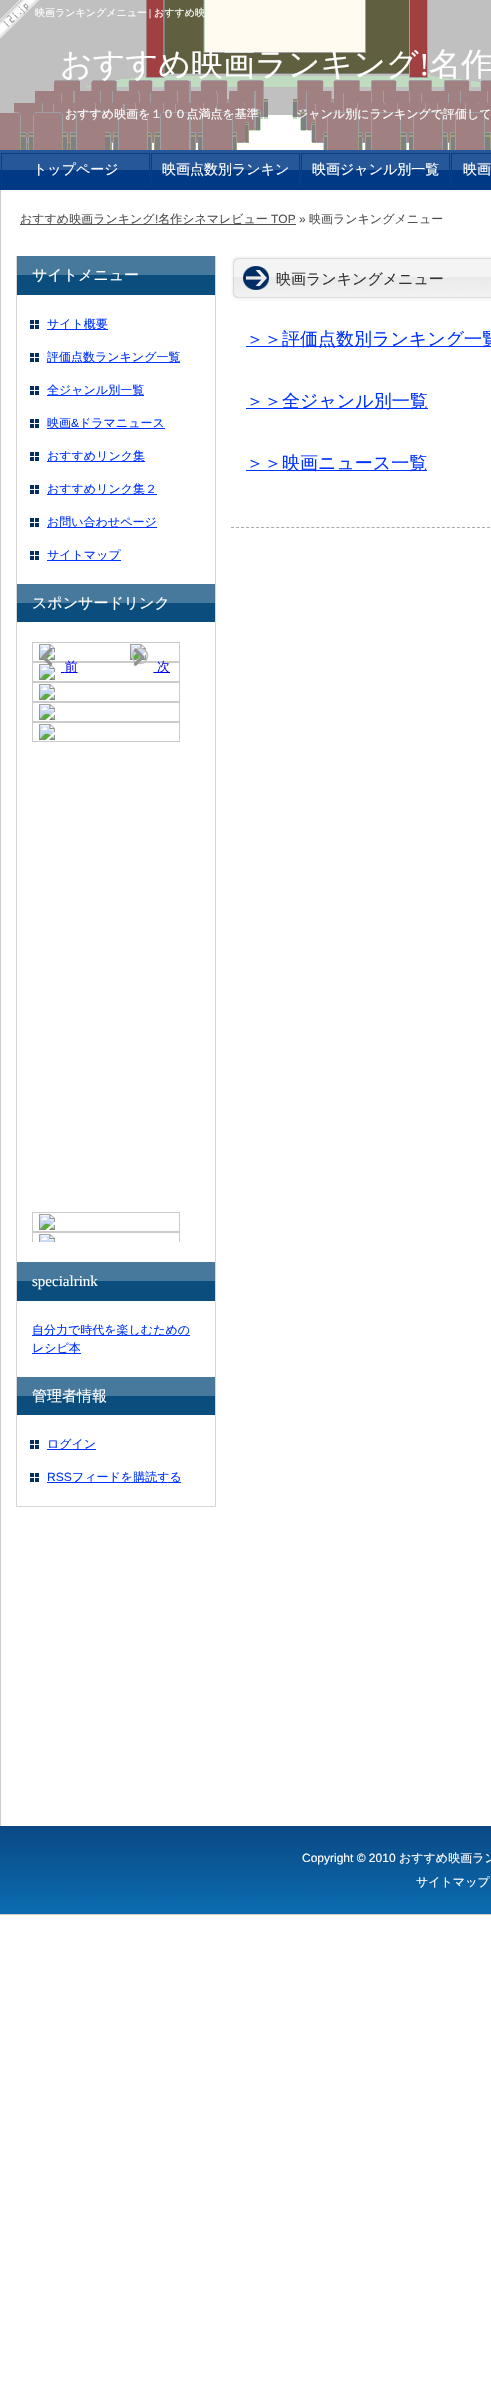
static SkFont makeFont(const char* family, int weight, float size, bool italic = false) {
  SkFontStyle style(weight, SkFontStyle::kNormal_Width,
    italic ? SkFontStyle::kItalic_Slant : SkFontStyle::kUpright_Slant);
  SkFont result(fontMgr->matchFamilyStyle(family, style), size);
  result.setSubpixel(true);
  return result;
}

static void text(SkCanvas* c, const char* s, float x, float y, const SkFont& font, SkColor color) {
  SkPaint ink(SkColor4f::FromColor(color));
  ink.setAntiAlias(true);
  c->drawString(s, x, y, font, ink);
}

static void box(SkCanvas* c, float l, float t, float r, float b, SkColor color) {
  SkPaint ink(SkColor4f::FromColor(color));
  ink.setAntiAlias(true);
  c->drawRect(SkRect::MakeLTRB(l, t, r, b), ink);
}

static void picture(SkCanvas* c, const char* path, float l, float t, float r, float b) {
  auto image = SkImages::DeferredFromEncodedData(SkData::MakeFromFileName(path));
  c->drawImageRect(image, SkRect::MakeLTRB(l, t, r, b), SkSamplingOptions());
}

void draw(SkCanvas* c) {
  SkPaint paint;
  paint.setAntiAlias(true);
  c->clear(0xffffffff);
  paint.setStyle(SkPaint::kStroke_Style);
  paint.setStrokeWidth(1);
  paint.setColor(0xffcccccc);
  c->drawRect(SkRect::MakeLTRB(0.5f, 0.5f, 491.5f, 1914.5f), paint);
  picture(c, "img_02.png", 0, 0, 491, 150);
  SkFont face1 = makeFont("WenQuanYi Zen Hei", 500, 10);
  text(c, "映画ランキングメニュー", 35, 16, face1, 0xffffffff);
  picture(c, "img_01.png", 0, 0, 39, 39);
  SkFont face2 = makeFont("Liberation Serif", 400, 10);
  text(c, "|", 149, 16, face2, 0xffffffff);
  text(c, "おすすめ映", 154, 16, face1, 0xffffffff);
  SkFont face3 = makeFont("WenQuanYi Zen Hei", 500, 32);
  text(c, "おすすめ映画ランキング", 60, 75, face3, 0xffffffff);
  SkFont face4 = makeFont("Liberation Serif", 400, 32);
  text(c, "!", 419, 75, face4, 0xffffffff);
  text(c, "名作", 429, 75, face3, 0xffffffff);
  SkFont face5 = makeFont("WenQuanYi Zen Hei", 500, 12);
  text(c, "おすすめ映画を１００点満点を基準", 65, 118, face5, 0xffffffff);
  text(c, "ジャンル別にランキングで評価して", 296, 118, face5, 0xffffffff);
  picture(c, "img_03.png", 0, 150, 491, 190);
  paint.setColor(0xff0a3d7b);
  c->drawRect(SkRect::MakeLTRB(1.5f, 153.5f, 149.5f, 186.5f), paint);
  SkFont face6 = makeFont("WenQuanYi Zen Hei", 500, 14);
  text(c, "トップページ", 33, 174, face6, 0xffffffff);
  c->drawRect(SkRect::MakeLTRB(151.5f, 153.5f, 299.5f, 186.5f), paint);
  text(c, "映画点数別ランキン", 162, 174, face6, 0xffffffff);
  c->drawRect(SkRect::MakeLTRB(301.5f, 153.5f, 449.5f, 186.5f), paint);
  text(c, "映画ジャンル別一覧", 312, 174, face6, 0xffffffff);
  c->drawRect(SkRect::MakeLTRB(451.5f, 153.5f, 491.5f, 186.5f), paint);
  text(c, "映画", 463, 174, face6, 0xffffffff);
  box(c, 20, 224, 296, 225, 0xff505050);
  text(c, "おすすめ映画ランキング 名作シネマレビュー", 20, 223, face5, 0xff505050);
  text(c, "映画ランキングメニュー", 309, 223, face5, 0xff505050);
  SkFont face7 = makeFont("Liberation Sans", 400, 12);
  text(c, "!", 155, 223, face7, 0xff505050);
  text(c, "TOP »", 271, 223, face7, 0xff505050);
  box(c, 215, 256, 216, 1507, 0xffd6d6d6);
  box(c, 16, 1506, 216, 1507, 0xffd6d6d6);
  box(c, 16, 256, 17, 1507, 0xffd6d6d6);
  picture(c, "img_04.png", 17, 256, 215, 295);
  SkFont face8 = makeFont("WenQuanYi Zen Hei", 500, 15);
  text(c, "サイトメニュー", 32, 280, face8, 0xffffffff);
  picture(c, "img_05.png", 30, 320, 39, 329);
  box(c, 47, 329, 108, 330, 0xff0033ff);
  text(c, "サイト概要", 47, 328, face5, 0xff0033ff);
  picture(c, "img_05.png", 30, 353, 39, 362);
  box(c, 47, 362, 180, 363, 0xff0033ff);
  text(c, "評価点数ランキング一覧", 47, 361, face5, 0xff0033ff);
  picture(c, "img_05.png", 30, 386, 39, 395);
  box(c, 47, 395, 144, 396, 0xff0033ff);
  text(c, "全ジャンル別一覧", 47, 394, face5, 0xff0033ff);
  picture(c, "img_05.png", 30, 419, 39, 428);
  box(c, 47, 428, 165, 429, 0xff0033ff);
  text(c, "映画", 47, 427, face5, 0xff0033ff);
  text(c, "&", 71, 427, face7, 0xff0033ff);
  text(c, "ドラマニュース", 79, 427, face5, 0xff0033ff);
  picture(c, "img_05.png", 30, 452, 39, 461);
  box(c, 47, 461, 145, 462, 0xff0033ff);
  text(c, "おすすめリンク集", 47, 460, face5, 0xff0033ff);
  picture(c, "img_05.png", 30, 485, 39, 494);
  box(c, 47, 494, 157, 495, 0xff0033ff);
  text(c, "おすすめリンク集２", 47, 493, face5, 0xff0033ff);
  picture(c, "img_05.png", 30, 518, 39, 527);
  box(c, 47, 527, 157, 528, 0xff0033ff);
  text(c, "お問い合わせページ", 47, 526, face5, 0xff0033ff);
  picture(c, "img_05.png", 30, 551, 39, 560);
  box(c, 47, 560, 121, 561, 0xff0033ff);
  text(c, "サイトマップ", 47, 559, face5, 0xff0033ff);
  picture(c, "img_06.png", 17, 584, 215, 622);
  text(c, "スポンサードリンク", 32, 608, face8, 0xffffffff);
  picture(c, "img_07.png", 32, 642, 180, 1242);
  picture(c, "img_04.png", 17, 1262, 215, 1301);
  SkFont face9 = makeFont("Liberation Serif", 400, 15);
  text(c, "specialrink", 32, 1286, face9, 0xffffffff);
  box(c, 32, 1335, 190, 1336, 0xff0033ff);
  text(c, "自分力で時代を楽しむための", 32, 1334, face5, 0xff0033ff);
  box(c, 32, 1353, 81, 1354, 0xff0033ff);
  text(c, "レシピ本", 32, 1352, face5, 0xff0033ff);
  picture(c, "img_06.png", 17, 1377, 215, 1415);
  text(c, "管理者情報", 32, 1401, face8, 0xffffffff);
  picture(c, "img_05.png", 30, 1440, 39, 1449);
  box(c, 47, 1449, 96, 1450, 0xff0033ff);
  text(c, "ログイン", 47, 1448, face5, 0xff0033ff);
  picture(c, "img_05.png", 30, 1473, 39, 1482);
  text(c, "RSS", 47, 1481, face7, 0xff0033ff);
  box(c, 47, 1482, 181, 1483, 0xff0033ff);
  text(c, "フィードを購読する", 72, 1481, face5, 0xff0033ff);
  picture(c, "img_08.png", 231, 256, 491, 301);
  text(c, "映画ランキングメニュー", 276, 284, face8, 0xff333333);
  paint.setColor(0xffaaaaaa);
  paint.setPathEffect(SkDashPathEffect::Make({{3, 2.02f}}, 0));
  c->drawPath(SkPathBuilder().moveTo(231, 527.5f).lineTo(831, 527.5f).detach(), paint);
  paint.setPathEffect(nullptr);
  box(c, 246, 346, 491, 347, 0xff0033ff);
  SkFont face10 = makeFont("WenQuanYi Zen Hei", 500, 18);
  text(c, "＞＞評価点数別ランキング一覧", 246, 345, face10, 0xff0033ff);
  box(c, 246, 408, 428, 409, 0xff0033ff);
  text(c, "＞＞全ジャンル別一覧", 246, 407, face10, 0xff0033ff);
  box(c, 246, 470, 427, 471, 0xff0033ff);
  text(c, "＞＞映画ニュース一覧", 246, 469, face10, 0xff0033ff);
  picture(c, "img_09.png", 0, 1826, 491, 1914);
  text(c, "Copyright © 2010", 302, 1862, face7, 0xffffffff);
  text(c, "おすすめ映画ラン", 399, 1862, face5, 0xffffffff);
  text(c, "サイトマップ", 416, 1886, face5, 0xffffffff);
}
